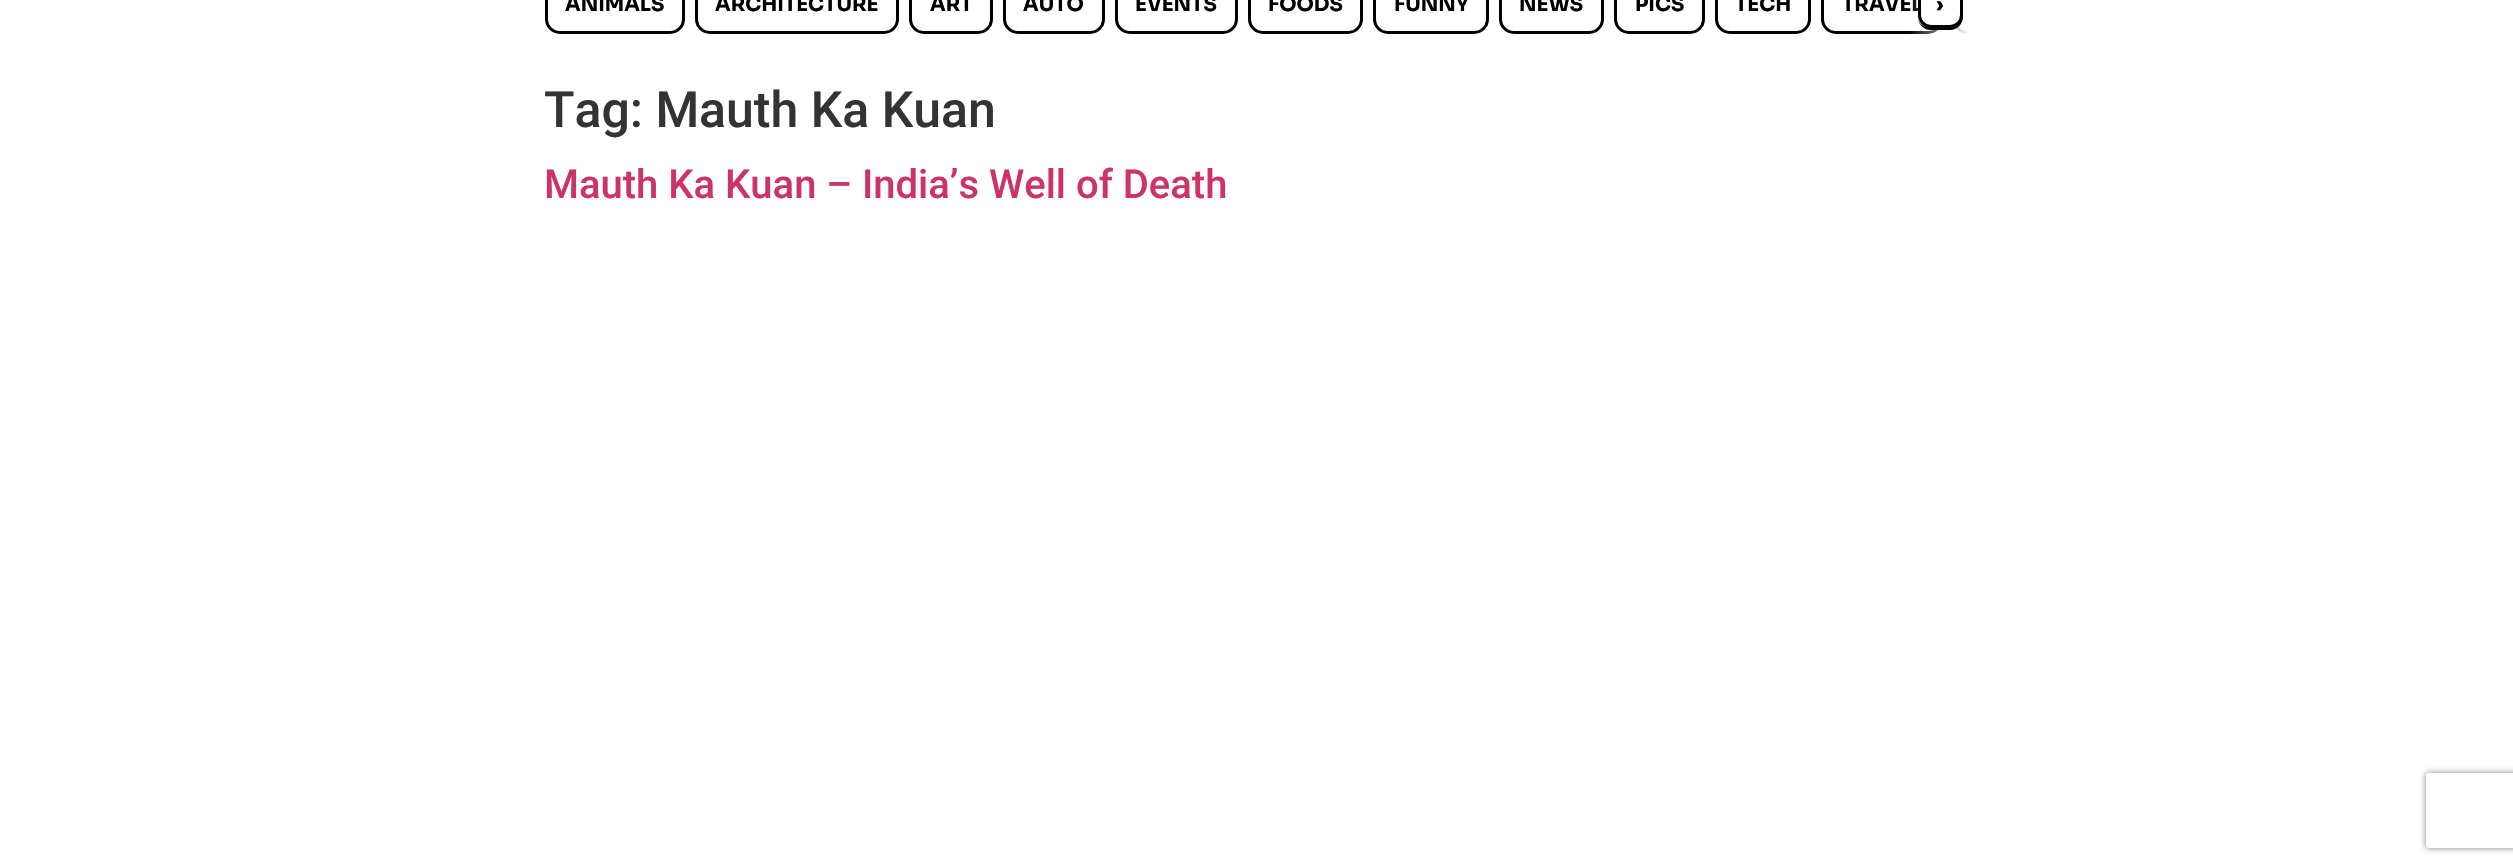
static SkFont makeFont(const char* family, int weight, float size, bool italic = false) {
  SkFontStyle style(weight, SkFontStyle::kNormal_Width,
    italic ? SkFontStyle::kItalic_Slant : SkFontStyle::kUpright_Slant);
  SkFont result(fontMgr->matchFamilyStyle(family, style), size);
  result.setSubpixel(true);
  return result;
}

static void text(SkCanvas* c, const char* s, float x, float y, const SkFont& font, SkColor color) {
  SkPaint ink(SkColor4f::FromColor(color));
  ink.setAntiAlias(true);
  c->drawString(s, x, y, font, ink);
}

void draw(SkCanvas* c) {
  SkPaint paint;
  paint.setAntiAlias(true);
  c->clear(0xffffffff);
  paint.setStyle(SkPaint::kStroke_Style);
  paint.setStrokeWidth(3);
  paint.setColor(0xff000000);
  c->drawRoundRect(SkRect::MakeLTRB(546.5f, -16.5f, 683.5f, 32.5f), 13.5f, 13.5f, paint);
  SkFont face1 = makeFont("Sora", 700, 20);
  text(c, "ANIMALS", 565, 11, face1, 0xff000000);
  c->drawRoundRect(SkRect::MakeLTRB(696.5f, -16.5f, 897.5f, 32.5f), 13.5f, 13.5f, paint);
  text(c, "ARCHITECTURE", 715, 11, face1, 0xff000000);
  c->drawRoundRect(SkRect::MakeLTRB(910.5f, -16.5f, 991.5f, 32.5f), 13.5f, 13.5f, paint);
  text(c, "ART", 930, 11, face1, 0xff000000);
  c->drawRoundRect(SkRect::MakeLTRB(1004.5f, -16.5f, 1103.5f, 32.5f), 13.5f, 13.5f, paint);
  text(c, "AUTO", 1023, 11, face1, 0xff000000);
  c->drawRoundRect(SkRect::MakeLTRB(1116.5f, -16.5f, 1236.5f, 32.5f), 13.5f, 13.5f, paint);
  text(c, "EVENTS", 1135, 11, face1, 0xff000000);
  c->drawRoundRect(SkRect::MakeLTRB(1249.5f, -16.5f, 1361.5f, 32.5f), 13.5f, 13.5f, paint);
  text(c, "FOODS", 1268, 11, face1, 0xff000000);
  c->drawRoundRect(SkRect::MakeLTRB(1374.5f, -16.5f, 1487.5f, 32.5f), 13.5f, 13.5f, paint);
  text(c, "FUNNY", 1394, 11, face1, 0xff000000);
  c->drawRoundRect(SkRect::MakeLTRB(1500.5f, -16.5f, 1602.5f, 32.5f), 13.5f, 13.5f, paint);
  text(c, "NEWS", 1519, 11, face1, 0xff000000);
  c->drawRoundRect(SkRect::MakeLTRB(1615.5f, -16.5f, 1703.5f, 32.5f), 13.5f, 13.5f, paint);
  text(c, "PICS", 1635, 11, face1, 0xff000000);
  c->drawRoundRect(SkRect::MakeLTRB(1716.5f, -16.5f, 1809.5f, 32.5f), 13.5f, 13.5f, paint);
  text(c, "TECH", 1735, 11, face1, 0xff000000);
  c->drawRoundRect(SkRect::MakeLTRB(1822.5f, -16.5f, 1941.5f, 32.5f), 13.5f, 13.5f, paint);
  text(c, "TRAVEL", 1842, 11, face1, 0xff000000);
  c->save();
  c->clipRect(SkRect::MakeLTRB(545, 0, 1970, 39));
  c->drawRoundRect(SkRect::MakeLTRB(1954.5f, -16.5f, 2072.5f, 32.5f), 13.5f, 13.5f, paint);
  c->restore();
  paint.setStyle(SkPaint::kFill_Style);
  {
    const SkColor colors[] = {0xffffffff, 0x00ffffff};
    const float stops[] = {0, 1};
    const SkPoint ends[] = {{1969, 4.7f}, {1909, 4.7f}};
    paint.setShader(SkGradientShader::MakeLinear(ends, colors, stops, 2, SkTileMode::kClamp));
    paint.setAlpha(255);
  }
  c->drawRect(SkRect::MakeLTRB(1910, 0, 1970, 34), paint);
  paint.setShader(nullptr);
  paint.setColor(0xff000000);
  c->drawPath(SkPathBuilder().moveTo(1918, 19).cubicTo(1919, 25, 1924, 30, 1931, 30).lineTo(1950, 30).cubicTo(1957, 30, 1963, 24, 1963, 17).lineTo(1963, -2).lineTo(1962, -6).cubicTo(1963, 1, 1964, 17, 1960, 22).cubicTo(1956, 29, 1947, 28, 1940, 28).cubicTo(1932, 28, 1921, 29, 1918, 19).close().detach(), paint);
  paint.setColor(0xffffffff);
  c->drawRoundRect(SkRect::MakeLTRB(1919.5f, -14.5f, 1961.5f, 26.5f), 11.5f, 11.5f, paint);
  paint.setStyle(SkPaint::kStroke_Style);
  paint.setColor(0xff000000);
  c->drawRoundRect(SkRect::MakeLTRB(1919.5f, -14.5f, 1961.5f, 26.5f), 11.5f, 11.5f, paint);
  text(c, "›", 1936, 11, face1, 0xff000000);
  SkFont face2 = makeFont("Roboto", 500, 50);
  text(c, "Tag: Mauth Ka Kuan", 544, 127, face2, 0xff333333);
  SkFont face3 = makeFont("Roboto", 500, 40);
  text(c, "Mauth Ka Kuan – India’s Well of Death", 544, 198, face3, 0xffcc3366);
  c->save();
  c->clipPath(SkPathBuilder(SkPathFillType::kEvenOdd).moveTo(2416, 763).lineTo(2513, 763).lineTo(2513, 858).lineTo(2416, 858).close().moveTo(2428.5f, 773).lineTo(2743.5f, 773).cubicTo(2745, 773, 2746, 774, 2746, 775.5f).lineTo(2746, 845.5f).cubicTo(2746, 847, 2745, 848, 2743.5f, 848).lineTo(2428.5f, 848).cubicTo(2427, 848, 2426, 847, 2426, 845.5f).lineTo(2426, 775.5f).cubicTo(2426, 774, 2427, 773, 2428.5f, 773).close().detach(), true);
  paint.setStyle(SkPaint::kFill_Style);
  paint.setColor(0xff808080);
  paint.setMaskFilter(SkMaskFilter::MakeBlur(kNormal_SkBlurStyle, 3));
  c->drawRoundRect(SkRect::MakeLTRB(2426, 773, 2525, 848), 2.5f, 2.5f, paint);
  paint.setMaskFilter(nullptr);
  c->restore();
}
